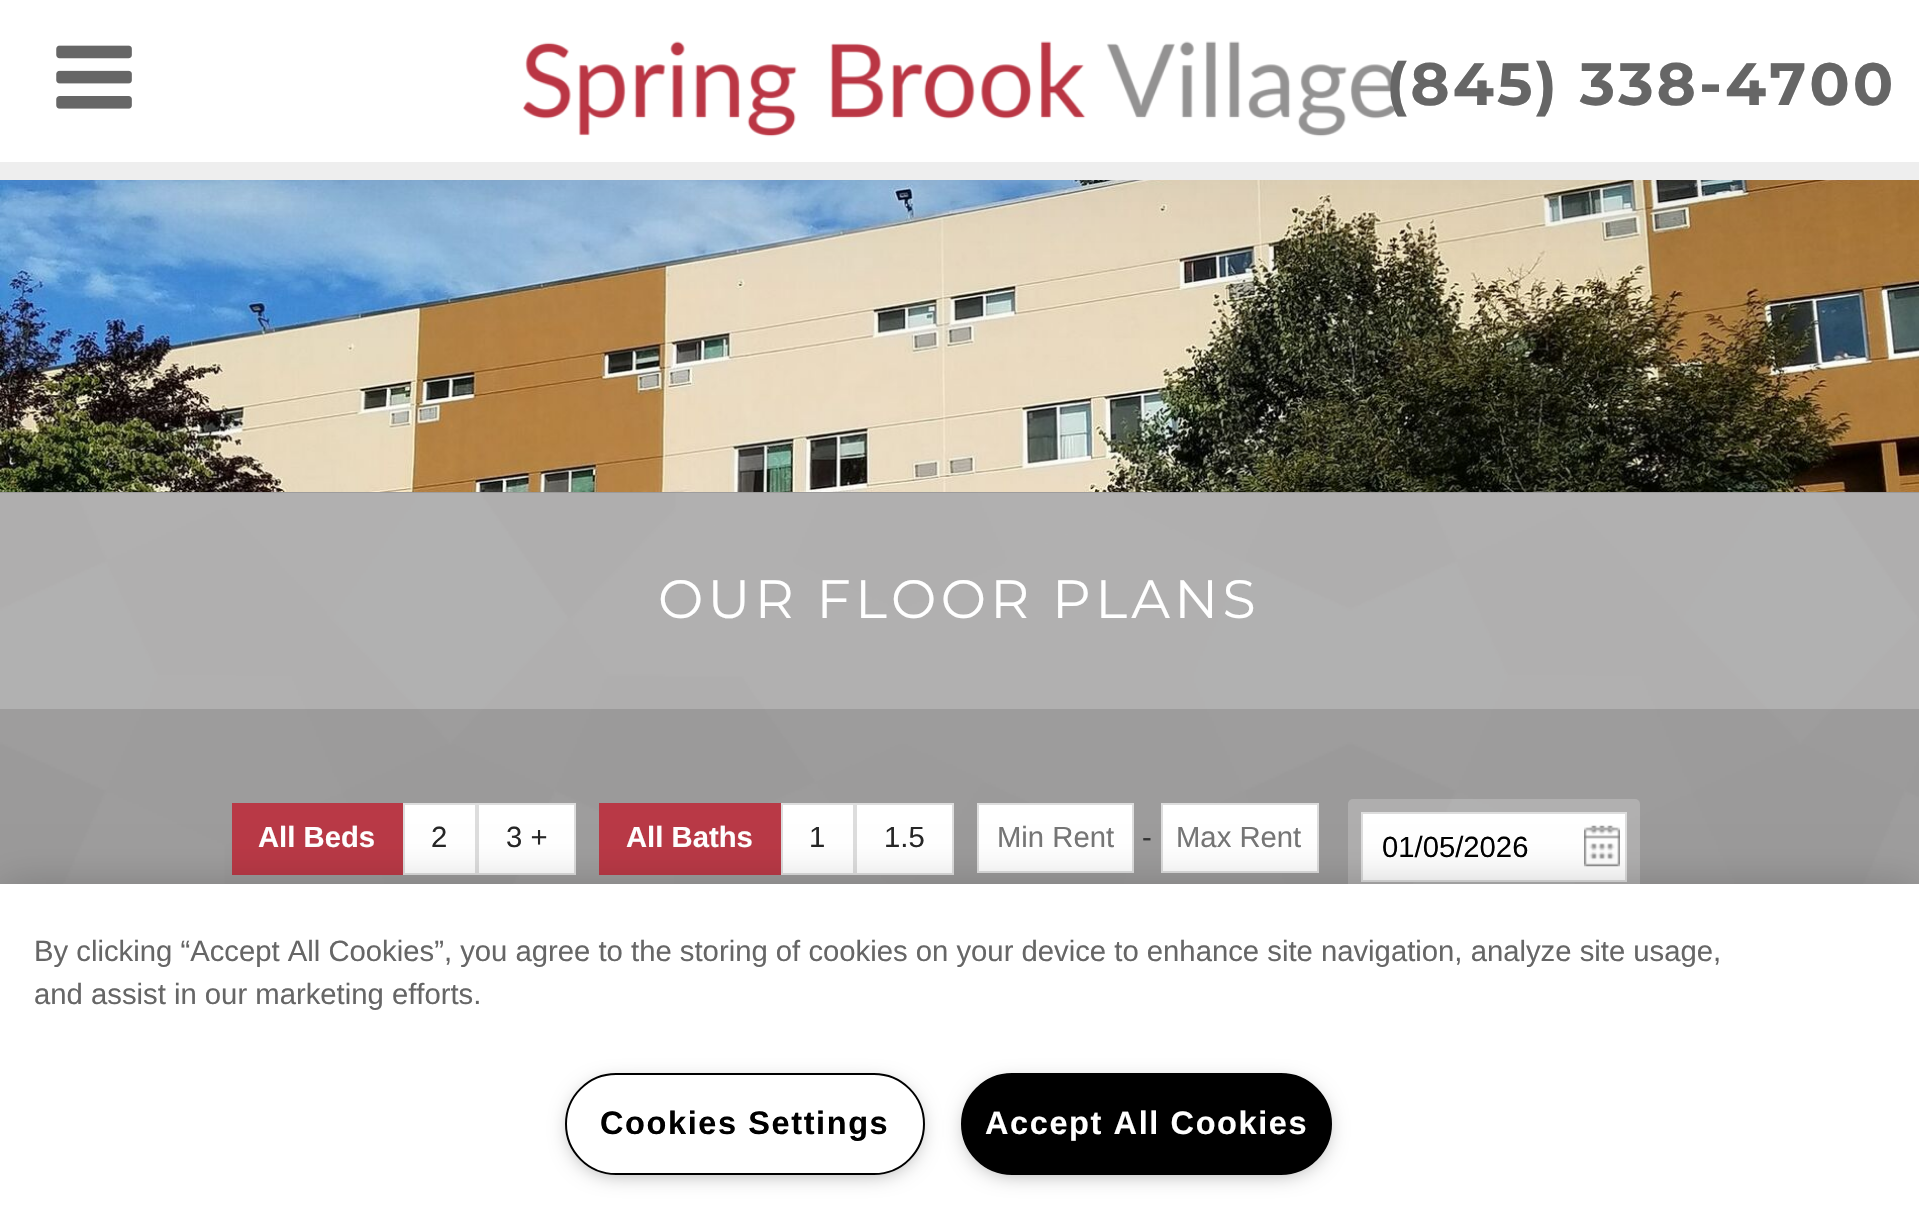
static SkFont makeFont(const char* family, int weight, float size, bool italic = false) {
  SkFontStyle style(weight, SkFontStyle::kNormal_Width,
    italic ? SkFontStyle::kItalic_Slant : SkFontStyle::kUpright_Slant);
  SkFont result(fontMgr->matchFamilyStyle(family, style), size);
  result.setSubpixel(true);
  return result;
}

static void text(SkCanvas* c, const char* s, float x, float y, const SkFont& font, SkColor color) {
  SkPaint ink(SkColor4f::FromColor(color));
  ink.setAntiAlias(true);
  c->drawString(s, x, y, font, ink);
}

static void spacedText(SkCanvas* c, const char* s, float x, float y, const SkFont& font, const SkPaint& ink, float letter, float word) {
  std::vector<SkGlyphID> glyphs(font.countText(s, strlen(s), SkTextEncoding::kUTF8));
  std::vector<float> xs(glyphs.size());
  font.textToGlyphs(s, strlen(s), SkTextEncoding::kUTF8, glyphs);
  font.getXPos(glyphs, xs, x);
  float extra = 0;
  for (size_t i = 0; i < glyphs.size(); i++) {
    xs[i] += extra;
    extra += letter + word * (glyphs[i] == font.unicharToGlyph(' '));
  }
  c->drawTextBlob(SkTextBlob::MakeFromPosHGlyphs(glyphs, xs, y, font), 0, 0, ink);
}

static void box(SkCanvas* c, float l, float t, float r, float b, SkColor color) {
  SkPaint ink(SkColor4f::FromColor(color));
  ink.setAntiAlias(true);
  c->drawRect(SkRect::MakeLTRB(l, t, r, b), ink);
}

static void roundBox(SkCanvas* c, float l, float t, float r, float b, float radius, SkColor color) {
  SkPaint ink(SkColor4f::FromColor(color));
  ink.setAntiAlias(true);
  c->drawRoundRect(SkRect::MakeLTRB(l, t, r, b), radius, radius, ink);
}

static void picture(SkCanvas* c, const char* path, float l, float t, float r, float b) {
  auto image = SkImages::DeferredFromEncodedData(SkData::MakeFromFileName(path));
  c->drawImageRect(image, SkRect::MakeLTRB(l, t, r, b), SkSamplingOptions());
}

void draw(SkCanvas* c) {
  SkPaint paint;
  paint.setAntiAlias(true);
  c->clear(0xff929191);
  picture(c, "img_01.png", 0, 492, 1919, 884);
  picture(c, "img_04.png", 0, 180, 1919, 492);
  paint.setColor(0x1a000000);
  paint.setMaskFilter(SkMaskFilter::MakeBlur(kNormal_SkBlurStyle, 67.5f));
  c->drawRect(SkRect::MakeLTRB(5, 5, 1915, 176), paint);
  paint.setMaskFilter(nullptr);
  box(c, 0, 0, 1919, 162, 0xffffffff);
  box(c, 0, 162, 1919, 180, 0xffeeeeee);
  picture(c, "img_02.png", 56, 45, 132, 109);
  picture(c, "img_03.png", 523, 41, 1397, 137);
  SkFont face1 = makeFont("Montserrat", 700, 59.75f);
  paint.setColor(0xff666666);
  spacedText(c, "(845) 338-4700", 1386, 105, face1, paint, 3, 0);
  box(c, 0, 493, 1919, 709, 0x33ffffff);
  SkFont face2 = makeFont("Montserrat", 400, 54);
  paint.setColor(0xffffffff);
  spacedText(c, "OUR FLOOR PLANS", 658, 618, face2, paint, 4.3f, 0);
  box(c, 232, 803, 403, 875, 0xffb93946);
  SkFont face3 = makeFont("Liberation Sans", 700, 29.25f);
  text(c, "All Beds", 258, 847, face3, 0xffffffff);
  c->drawRect(SkRect::MakeLTRB(404, 804, 476, 874), paint);
  paint.setStyle(SkPaint::kStroke_Style);
  paint.setStrokeWidth(2);
  paint.setColor(0xffdddddd);
  c->drawRect(SkRect::MakeLTRB(404, 804, 476, 874), paint);
  SkFont face4 = makeFont("Liberation Sans", 400, 29.25f);
  text(c, "2", 431, 847, face4, 0xff262626);
  paint.setStyle(SkPaint::kFill_Style);
  paint.setColor(0xffffffff);
  c->drawRect(SkRect::MakeLTRB(478, 804, 575, 874), paint);
  paint.setStyle(SkPaint::kStroke_Style);
  paint.setColor(0xffdddddd);
  c->drawRect(SkRect::MakeLTRB(478, 804, 575, 874), paint);
  text(c, "3 +", 506, 847, face4, 0xff262626);
  box(c, 599, 803, 781, 875, 0xffb93946);
  text(c, "All Baths", 626, 847, face3, 0xffffffff);
  paint.setStyle(SkPaint::kFill_Style);
  paint.setColor(0xffffffff);
  c->drawRect(SkRect::MakeLTRB(782, 804, 854, 874), paint);
  paint.setStyle(SkPaint::kStroke_Style);
  paint.setColor(0xffdddddd);
  c->drawRect(SkRect::MakeLTRB(782, 804, 854, 874), paint);
  text(c, "1", 809, 847, face4, 0xff262626);
  paint.setStyle(SkPaint::kFill_Style);
  paint.setColor(0xffffffff);
  c->drawRect(SkRect::MakeLTRB(856, 804, 953, 874), paint);
  paint.setStyle(SkPaint::kStroke_Style);
  paint.setColor(0xffdddddd);
  c->drawRect(SkRect::MakeLTRB(856, 804, 953, 874), paint);
  text(c, "1.5", 884, 847, face4, 0xff262626);
  paint.setStyle(SkPaint::kFill_Style);
  paint.setColor(0xffffffff);
  c->drawRect(SkRect::MakeLTRB(978, 804, 1133, 872), paint);
  paint.setStyle(SkPaint::kStroke_Style);
  paint.setColor(0xffdddddd);
  c->drawRect(SkRect::MakeLTRB(978, 804, 1133, 872), paint);
  text(c, "Min Rent", 997, 847, face4, 0xff757575);
  text(c, "-", 1142, 847, face4, 0xff333333);
  paint.setStyle(SkPaint::kFill_Style);
  paint.setColor(0xffffffff);
  c->drawRect(SkRect::MakeLTRB(1162, 804, 1318, 872), paint);
  paint.setStyle(SkPaint::kStroke_Style);
  paint.setColor(0xffdddddd);
  c->drawRect(SkRect::MakeLTRB(1162, 804, 1318, 872), paint);
  text(c, "Max Rent", 1176, 847, face4, 0xff757575);
  roundBox(c, 1348, 799, 1640, 896, 5, 0x33ffffff);
  box(c, 1363, 814, 1625, 880, 0xffffffff);
  picture(c, "img_05.png", 1584, 825, 1620, 867);
  c->drawRect(SkRect::MakeLTRB(1362, 813, 1626, 881), paint);
  text(c, "01/05/2026", 1382, 857, face4, 0xff000000);
  paint.setStyle(SkPaint::kFill_Style);
  paint.setColor(0x33000000);
  paint.setMaskFilter(SkMaskFilter::MakeBlur(kNormal_SkBlurStyle, 20));
  c->drawRect(SkRect::MakeLTRB(0, 884, 1919, 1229), paint);
  paint.setMaskFilter(nullptr);
  box(c, 0, 884, 1919, 1228, 0xffffffff);
  SkFont face5 = makeFont("Liberation Sans", 400, 29.27f);
  text(c, "By clicking “Accept All Cookies”, you agree to the storing of cookies on your device to enhance site navigation, analyze site usage,", 34, 961, face5, 0xff666666);
  text(c, "and assist in our marketing efforts.", 34, 1004, face5, 0xff666666);
  paint.setColor(0xff999999);
  paint.setMaskFilter(SkMaskFilter::MakeBlur(kNormal_SkBlurStyle, 11));
  c->drawRoundRect(SkRect::MakeLTRB(572, 1085, 918, 1172), 43.5f, 43.5f, paint);
  paint.setMaskFilter(nullptr);
  paint.setColor(0xffffffff);
  c->drawRoundRect(SkRect::MakeLTRB(566, 1074, 924, 1174), 50, 50, paint);
  paint.setStyle(SkPaint::kStroke_Style);
  paint.setColor(0xff000000);
  c->drawRoundRect(SkRect::MakeLTRB(566, 1074, 924, 1174), 50, 50, paint);
  SkFont face6 = makeFont("Liberation Sans", 700, 32.5f);
  paint.setStyle(SkPaint::kFill_Style);
  spacedText(c, "Cookies Settings", 600, 1134, face6, paint, 1.6f, 0);
  paint.setColor(0xff999999);
  paint.setMaskFilter(SkMaskFilter::MakeBlur(kNormal_SkBlurStyle, 11));
  c->drawRoundRect(SkRect::MakeLTRB(968, 1085, 1325, 1172), 43.5f, 43.5f, paint);
  paint.setMaskFilter(nullptr);
  paint.setColor(0xff000000);
  c->drawRoundRect(SkRect::MakeLTRB(962, 1074, 1331, 1174), 50, 50, paint);
  paint.setStyle(SkPaint::kStroke_Style);
  c->drawRoundRect(SkRect::MakeLTRB(962, 1074, 1331, 1174), 50, 50, paint);
  paint.setStyle(SkPaint::kFill_Style);
  paint.setColor(0xffffffff);
  spacedText(c, "Accept All Cookies", 985, 1134, face6, paint, 1.6f, 0);
}
